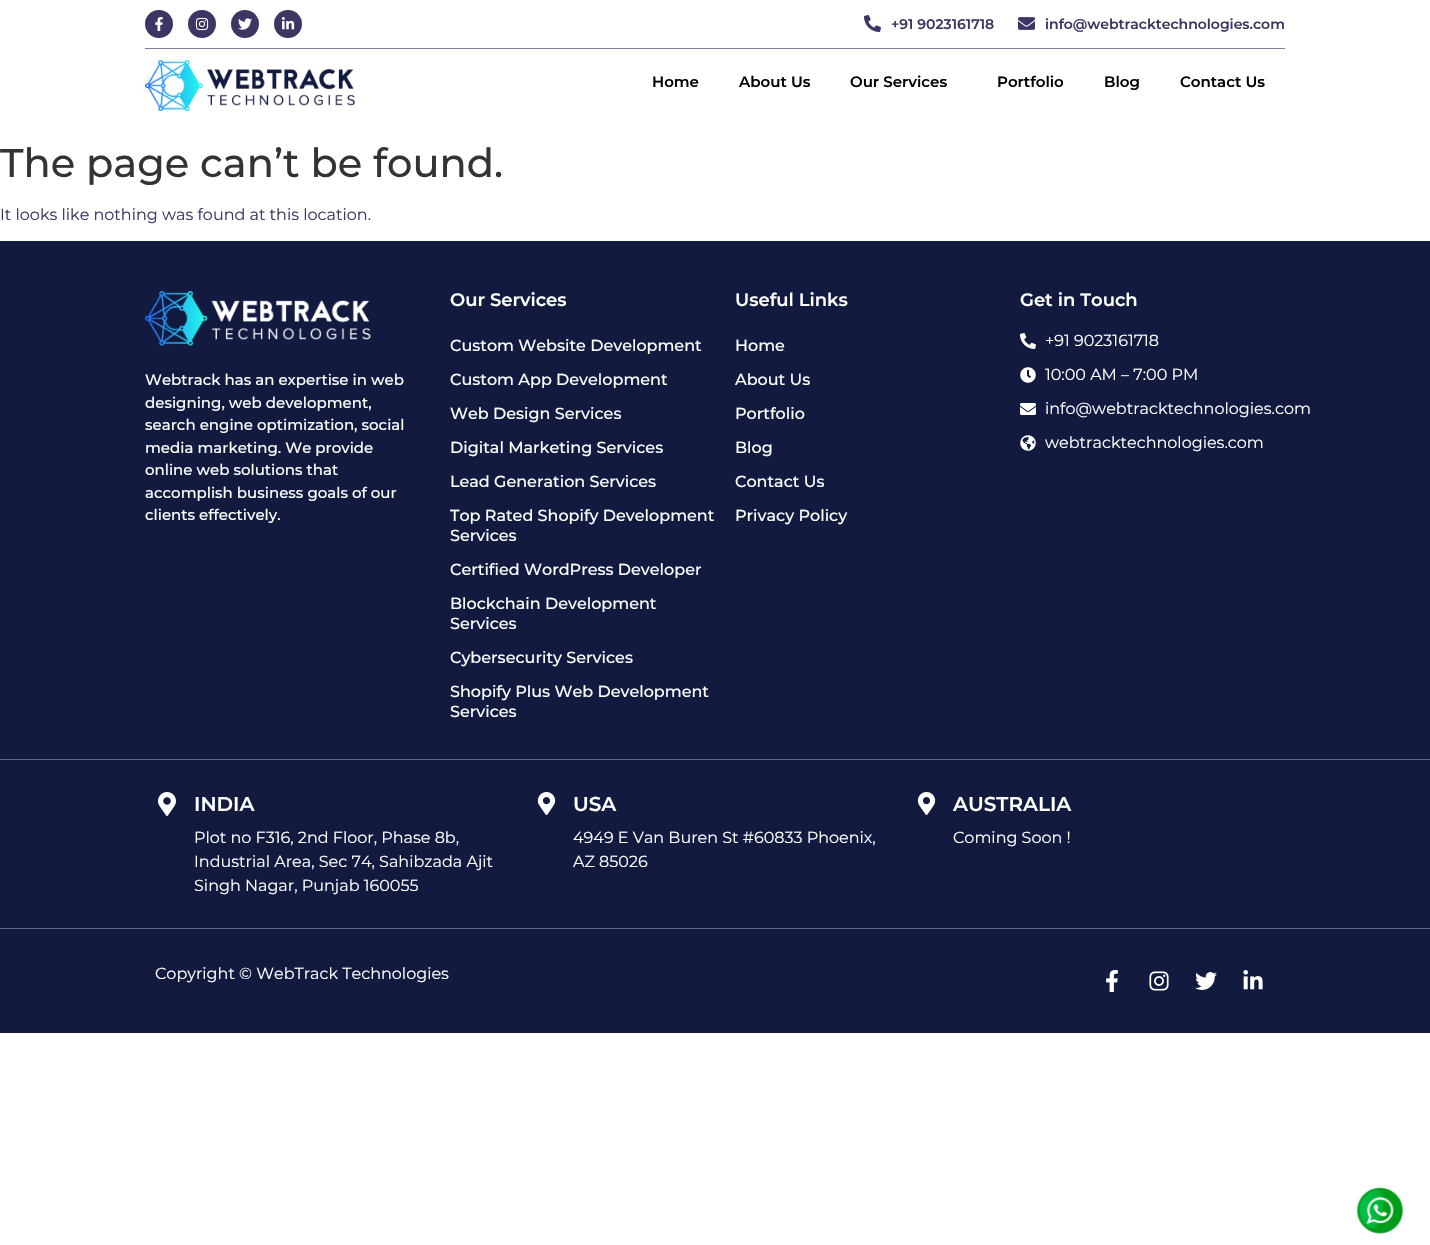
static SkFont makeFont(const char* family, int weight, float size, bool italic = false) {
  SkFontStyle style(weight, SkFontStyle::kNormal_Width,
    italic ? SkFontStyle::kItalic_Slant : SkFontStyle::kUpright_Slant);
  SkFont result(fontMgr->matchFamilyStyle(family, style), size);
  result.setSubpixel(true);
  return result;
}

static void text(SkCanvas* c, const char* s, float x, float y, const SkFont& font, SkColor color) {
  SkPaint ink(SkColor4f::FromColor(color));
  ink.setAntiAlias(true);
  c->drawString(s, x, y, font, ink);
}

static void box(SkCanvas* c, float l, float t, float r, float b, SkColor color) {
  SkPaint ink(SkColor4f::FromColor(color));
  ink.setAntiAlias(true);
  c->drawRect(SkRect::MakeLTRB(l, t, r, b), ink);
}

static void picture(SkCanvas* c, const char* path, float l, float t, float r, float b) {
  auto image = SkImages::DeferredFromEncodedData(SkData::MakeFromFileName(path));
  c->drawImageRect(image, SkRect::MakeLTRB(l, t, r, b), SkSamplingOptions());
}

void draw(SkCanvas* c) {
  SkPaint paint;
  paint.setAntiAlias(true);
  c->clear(0xffffffff);
  paint.setColor(0xff3b3663);
  c->drawCircle(159, 24, 14, paint);
  picture(c, "img_01.png", 155, 17, 163, 31);
  c->drawCircle(202, 24, 14, paint);
  picture(c, "img_02.png", 195, 17, 209, 31);
  c->drawCircle(245, 24, 14, paint);
  picture(c, "img_03.png", 238, 18, 252, 30);
  c->drawCircle(288, 24, 14, paint);
  picture(c, "img_04.png", 281, 17, 295, 30);
  picture(c, "img_05.png", 864, 15, 881, 32);
  SkFont face1 = makeFont("Montserrat", 600, 14);
  text(c, "+91 9023161718", 891, 29, face1, 0xff3b3663);
  picture(c, "img_06.png", 1018, 17, 1035, 30);
  text(c, "info@webtracktechnologies.com", 1045, 29, face1, 0xff3b3663);
  box(c, 145, 48, 1285, 49, 0xff807c9a);
  picture(c, "img_07.png", 145, 59, 355, 111);
  SkFont face2 = makeFont("Montserrat", 600, 15);
  text(c, "Home", 652, 87, face2, 0xff000000);
  text(c, "About Us", 739, 87, face2, 0xff000000);
  text(c, "Our Services", 850, 87, face2, 0xff000000);
  text(c, "Portfolio", 997, 87, face2, 0xff000000);
  text(c, "Blog", 1104, 87, face2, 0xff000000);
  text(c, "Contact Us", 1180, 87, face2, 0xff000000);
  SkFont face3 = makeFont("Montserrat", 500, 40);
  text(c, "The page can’t be found.", 0, 177, face3, 0xff333333);
  SkFont face4 = makeFont("Montserrat", 400, 16);
  text(c, "It looks like nothing was found at this location.", 0, 220, face4, 0xff3b3663);
  box(c, 0, 241, 1430, 759, 0xff131a40);
  picture(c, "img_08.png", 145, 291, 371, 347);
  SkFont face5 = makeFont("Montserrat", 500, 15);
  text(c, "Webtrack has an expertise in web", 145, 385, face5, 0xffffffff);
  text(c, "designing, web development,", 145, 408, face5, 0xffffffff);
  text(c, "search engine optimization, social", 145, 430, face5, 0xffffffff);
  text(c, "media marketing. We provide", 145, 453, face5, 0xffffffff);
  text(c, "online web solutions that", 145, 475, face5, 0xffffffff);
  text(c, "accomplish business goals of our", 145, 498, face5, 0xffffffff);
  text(c, "clients effectively.", 145, 520, face5, 0xffffffff);
  SkFont face6 = makeFont("Montserrat", 600, 18);
  text(c, "Our Services", 450, 306, face6, 0xffffffff);
  SkFont face7 = makeFont("Montserrat", 500, 16);
  text(c, "Custom Website Development", 450, 351, face7, 0xffffffff);
  text(c, "Custom App Development", 450, 385, face7, 0xffffffff);
  text(c, "Web Design Services", 450, 419, face7, 0xffffffff);
  text(c, "Digital Marketing Services", 450, 453, face7, 0xffffffff);
  text(c, "Lead Generation Services", 450, 487, face7, 0xffffffff);
  text(c, "Top Rated Shopify Development", 450, 521, face7, 0xffffffff);
  text(c, "Services", 450, 541, face7, 0xffffffff);
  text(c, "Certified WordPress Developer", 450, 575, face7, 0xffffffff);
  text(c, "Blockchain Development", 450, 609, face7, 0xffffffff);
  text(c, "Services", 450, 629, face7, 0xffffffff);
  text(c, "Cybersecurity Services", 450, 663, face7, 0xffffffff);
  text(c, "Shopify Plus Web Development", 450, 697, face7, 0xffffffff);
  text(c, "Services", 450, 717, face7, 0xffffffff);
  text(c, "Useful Links", 735, 306, face6, 0xffffffff);
  text(c, "Home", 735, 351, face7, 0xffffffff);
  text(c, "About Us", 735, 385, face7, 0xffffffff);
  text(c, "Portfolio", 735, 419, face7, 0xffffffff);
  text(c, "Blog", 735, 453, face7, 0xffffffff);
  text(c, "Contact Us", 735, 487, face7, 0xffffffff);
  text(c, "Privacy Policy", 735, 521, face7, 0xffffffff);
  text(c, "Get in Touch", 1020, 306, face6, 0xffffffff);
  picture(c, "img_09.png", 1020, 333, 1036, 349);
  text(c, "+91 9023161718", 1045, 346, face4, 0xffffffff);
  picture(c, "img_10.png", 1020, 367, 1036, 383);
  text(c, "10:00 AM – 7:00 PM", 1045, 380, face4, 0xffffffff);
  picture(c, "img_11.png", 1020, 403, 1036, 415);
  text(c, "info@webtracktechnologies.com", 1045, 414, face4, 0xffffffff);
  picture(c, "img_12.png", 1020, 435, 1036, 451);
  text(c, "webtracktechnologies.com", 1045, 448, face4, 0xffffffff);
  box(c, 0, 760, 1430, 928, 0xff131a40);
  box(c, 0, 759, 1430, 760, 0xff696687);
  box(c, 0, 928, 1430, 929, 0xff696687);
  picture(c, "img_13.png", 158, 792, 176, 816);
  SkFont face8 = makeFont("Montserrat", 600, 20);
  text(c, "INDIA", 194, 811, face8, 0xffffffff);
  text(c, "Plot no F316, 2nd Floor, Phase 8b,", 194, 843, face4, 0xffffffff);
  text(c, "Industrial Area, Sec 74, Sahibzada Ajit", 194, 867, face4, 0xffffffff);
  text(c, "Singh Nagar, Punjab 160055", 194, 891, face4, 0xffffffff);
  picture(c, "img_14.png", 537, 792, 556, 815);
  text(c, "USA", 573, 811, face8, 0xffffffff);
  text(c, "4949 E Van Buren St #60833 Phoenix,", 573, 843, face4, 0xffffffff);
  text(c, "AZ 85026", 573, 867, face4, 0xffffffff);
  picture(c, "img_14.png", 917, 792, 936, 815);
  text(c, "AUSTRALIA", 953, 811, face8, 0xffffffff);
  text(c, "Coming Soon !", 953, 843, face4, 0xffffffff);
  box(c, 0, 929, 1430, 1033, 0xff131a40);
  text(c, "Copyright © WebTrack Technologies", 155, 979, face4, 0xffffffff);
  picture(c, "img_15.png", 1106, 970, 1118, 992);
  picture(c, "img_16.png", 1149, 971, 1169, 991);
  picture(c, "img_17.png", 1195, 972, 1217, 990);
  picture(c, "img_18.png", 1243, 970, 1263, 990);
  picture(c, "img_19.png", 1356, 1187, 1404, 1234);
}
